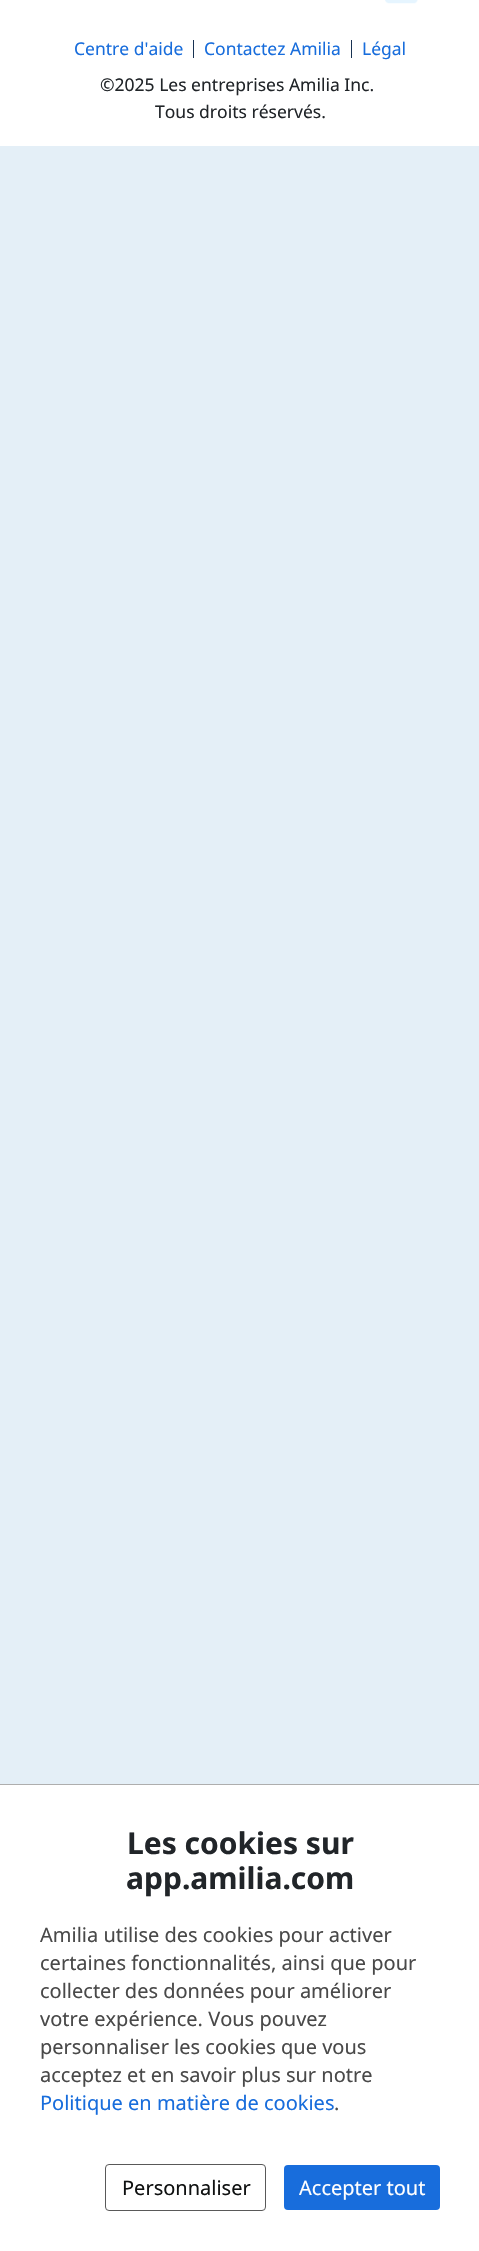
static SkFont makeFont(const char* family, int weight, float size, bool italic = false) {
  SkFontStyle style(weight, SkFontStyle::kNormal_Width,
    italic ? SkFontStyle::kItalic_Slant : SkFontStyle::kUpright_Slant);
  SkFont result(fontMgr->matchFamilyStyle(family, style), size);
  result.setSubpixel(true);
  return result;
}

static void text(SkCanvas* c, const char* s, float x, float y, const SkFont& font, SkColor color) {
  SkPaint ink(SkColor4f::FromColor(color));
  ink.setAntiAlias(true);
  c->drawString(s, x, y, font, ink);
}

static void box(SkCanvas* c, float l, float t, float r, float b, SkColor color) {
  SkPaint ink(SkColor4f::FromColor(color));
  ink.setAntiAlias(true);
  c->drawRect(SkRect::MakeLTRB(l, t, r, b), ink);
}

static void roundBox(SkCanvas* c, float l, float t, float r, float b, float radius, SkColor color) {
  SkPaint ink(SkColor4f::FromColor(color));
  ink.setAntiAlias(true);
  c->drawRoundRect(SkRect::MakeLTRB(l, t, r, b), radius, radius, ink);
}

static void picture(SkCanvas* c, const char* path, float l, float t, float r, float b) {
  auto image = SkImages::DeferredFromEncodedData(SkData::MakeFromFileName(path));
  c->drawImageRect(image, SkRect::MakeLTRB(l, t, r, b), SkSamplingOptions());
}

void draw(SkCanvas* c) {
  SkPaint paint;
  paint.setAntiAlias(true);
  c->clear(0xffe4eff7);
  box(c, 0, 0, 479, 146, 0xffffffff);
  picture(c, "img_01.png", 385, 0, 418, 4);
  SkFont face1 = makeFont("Noto Sans", 400, 17.5f);
  text(c, "Centre d'aide", 74, 55, face1, 0xff186ddc);
  box(c, 193, 40, 194, 58, 0xff183252);
  text(c, "Contactez Amilia", 204, 55, face1, 0xff186ddc);
  box(c, 351, 40, 352, 58, 0xff183252);
  text(c, "Légal", 362, 55, face1, 0xff186ddc);
  text(c, "©2025 Les entreprises Amilia Inc.", 100, 91, face1, 0xff212529);
  text(c, "Tous droits réservés.", 155, 118, face1, 0xff212529);
  box(c, 0, 1785, 479, 2251, 0xffffffff);
  box(c, 0, 1784, 479, 1785, 0xffaeaeae);
  SkFont face2 = makeFont("Noto Sans", 700, 30);
  text(c, "Les cookies sur", 127, 1854, face2, 0xff212529);
  text(c, "app.amilia.com", 126, 1889, face2, 0xff212529);
  SkFont face3 = makeFont("Noto Sans", 400, 20);
  text(c, "Amilia utilise des cookies pour activer", 40, 1942, face3, 0xff494949);
  text(c, "certaines fonctionnalités, ainsi que pour", 40, 1970, face3, 0xff494949);
  text(c, "collecter des données pour améliorer", 40, 1998, face3, 0xff494949);
  text(c, "votre expérience. Vous pouvez", 40, 2026, face3, 0xff494949);
  text(c, "personnaliser les cookies que vous", 40, 2054, face3, 0xff494949);
  text(c, "acceptez et en savoir plus sur notre", 40, 2082, face3, 0xff494949);
  text(c, "Politique en matière de cookies", 40, 2110, face3, 0xff186ddc);
  text(c, ".", 334, 2110, face3, 0xff494949);
  paint.setStyle(SkPaint::kStroke_Style);
  paint.setStrokeWidth(1);
  paint.setColor(0xff595959);
  c->drawRoundRect(SkRect::MakeLTRB(105.5f, 2164.5f, 265.5f, 2210.5f), 3.5f, 3.5f, paint);
  text(c, "Personnaliser", 122, 2195, face3, 0xff0f1111);
  roundBox(c, 284, 2165, 440, 2210, 4, 0xff186ddc);
  text(c, "Accepter tout", 299, 2195, face3, 0xffffffff);
}
